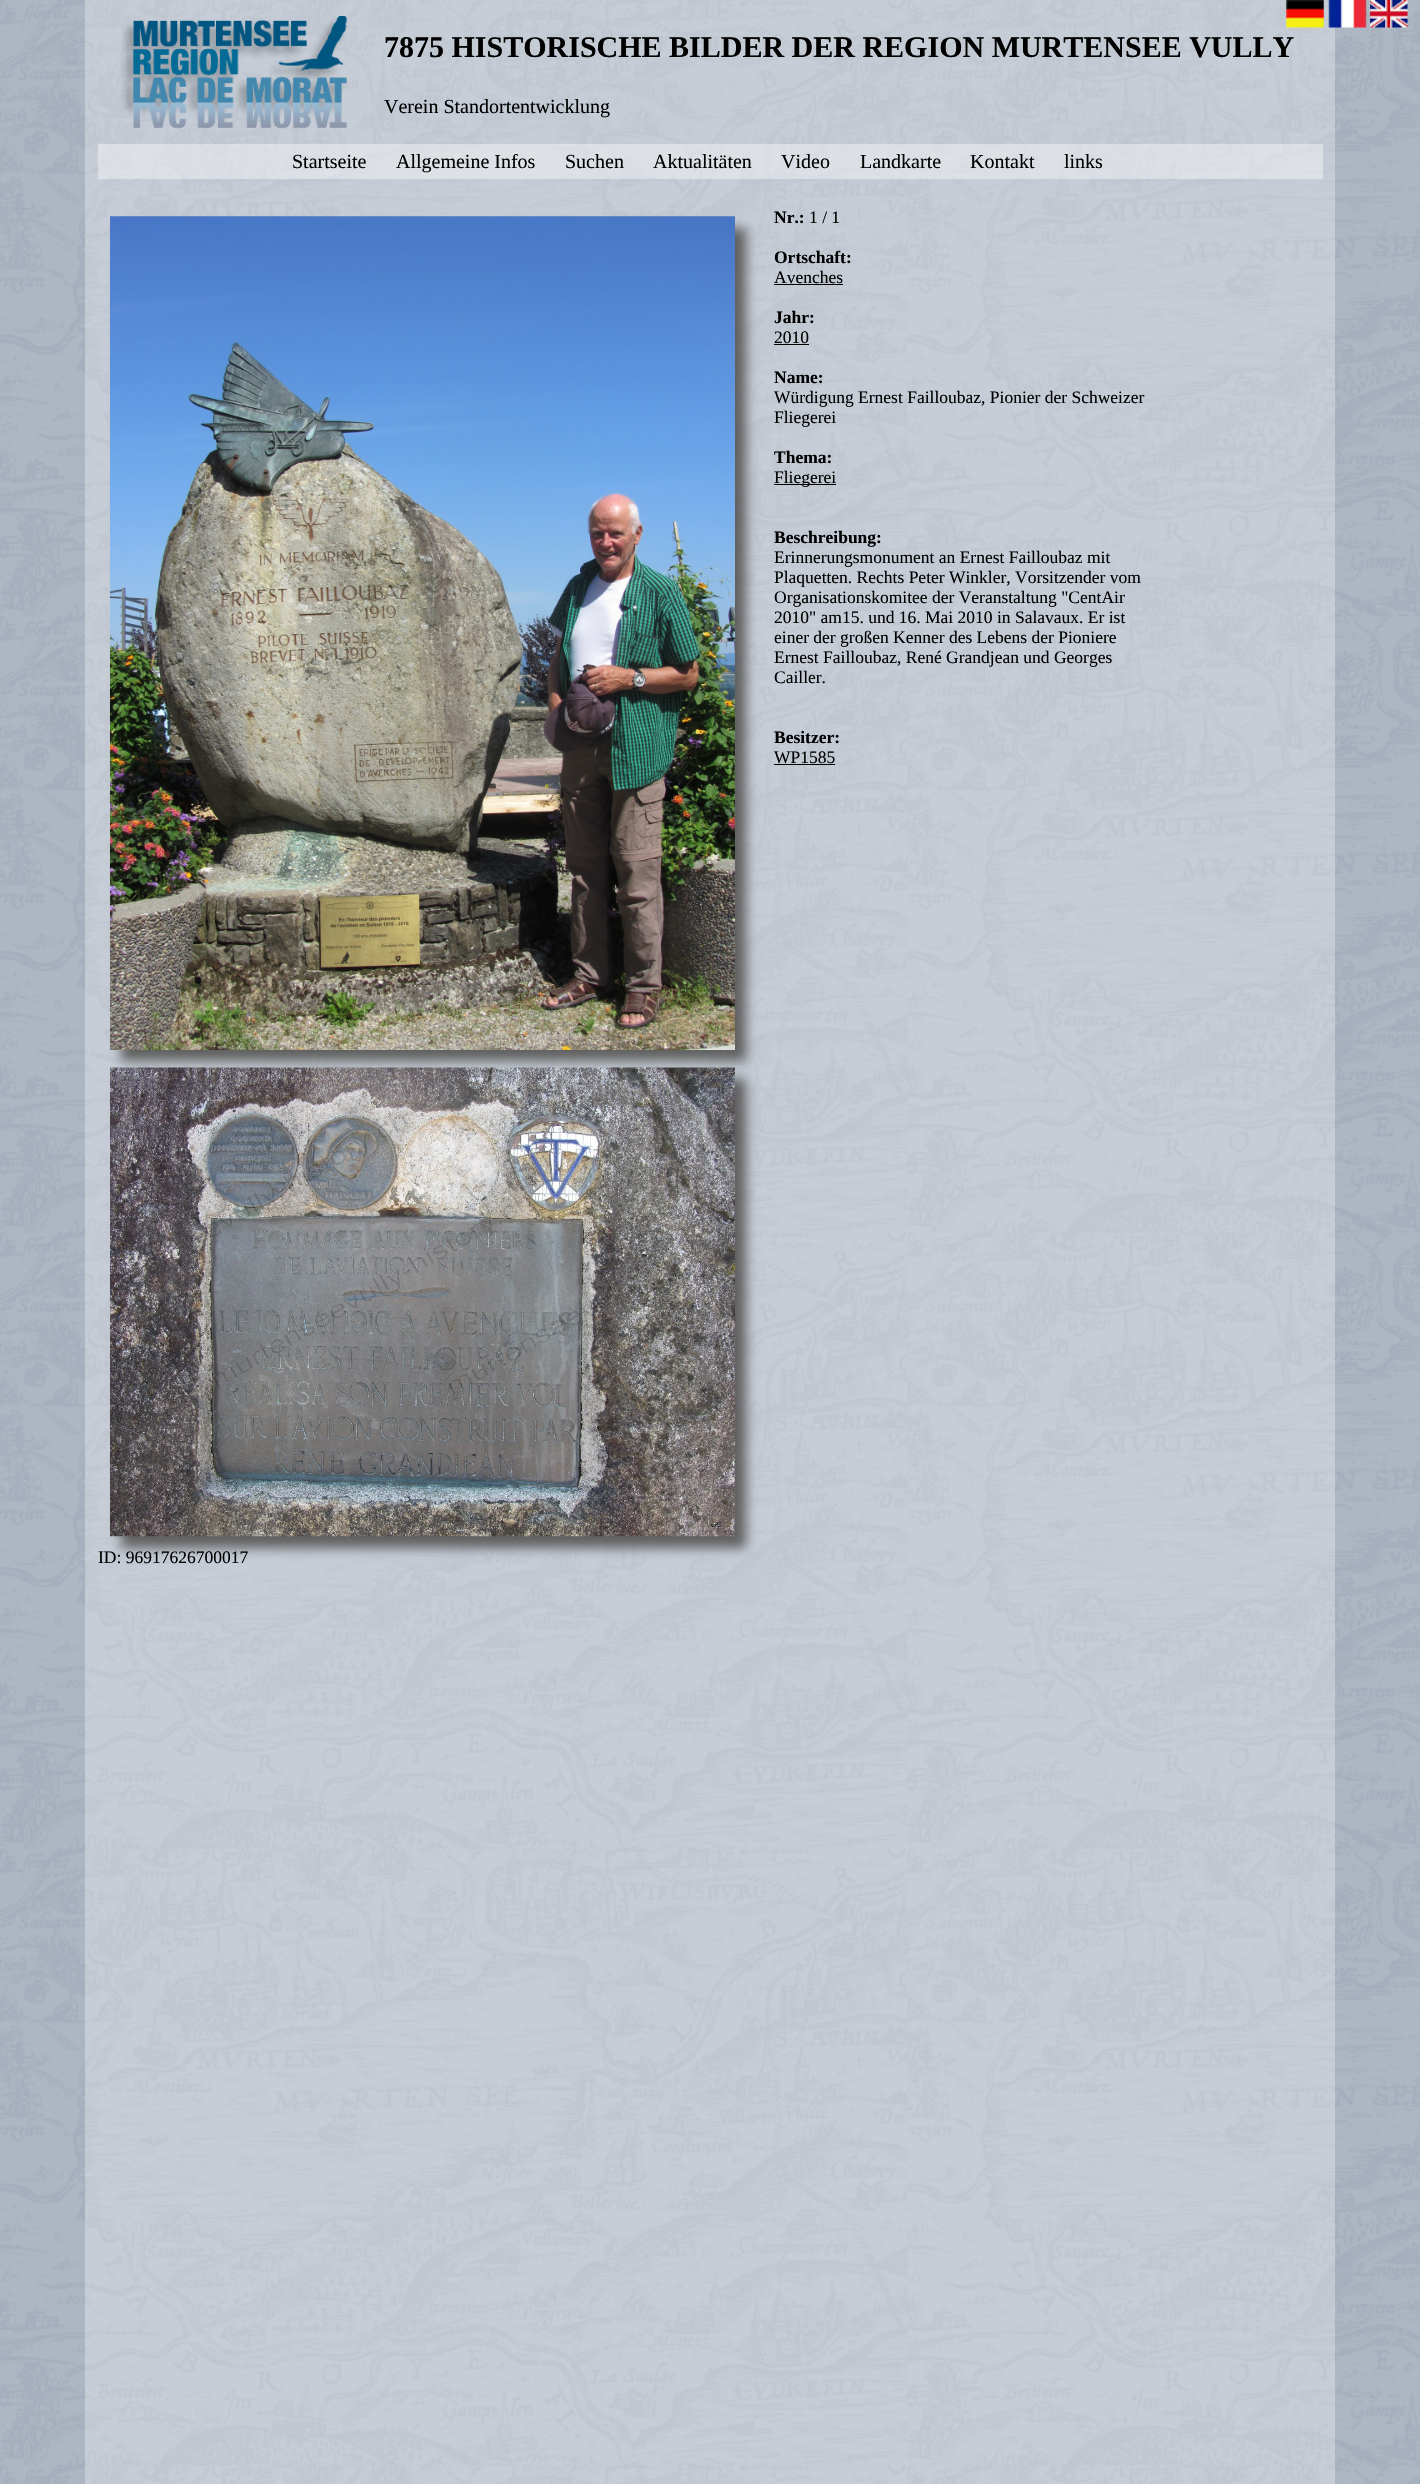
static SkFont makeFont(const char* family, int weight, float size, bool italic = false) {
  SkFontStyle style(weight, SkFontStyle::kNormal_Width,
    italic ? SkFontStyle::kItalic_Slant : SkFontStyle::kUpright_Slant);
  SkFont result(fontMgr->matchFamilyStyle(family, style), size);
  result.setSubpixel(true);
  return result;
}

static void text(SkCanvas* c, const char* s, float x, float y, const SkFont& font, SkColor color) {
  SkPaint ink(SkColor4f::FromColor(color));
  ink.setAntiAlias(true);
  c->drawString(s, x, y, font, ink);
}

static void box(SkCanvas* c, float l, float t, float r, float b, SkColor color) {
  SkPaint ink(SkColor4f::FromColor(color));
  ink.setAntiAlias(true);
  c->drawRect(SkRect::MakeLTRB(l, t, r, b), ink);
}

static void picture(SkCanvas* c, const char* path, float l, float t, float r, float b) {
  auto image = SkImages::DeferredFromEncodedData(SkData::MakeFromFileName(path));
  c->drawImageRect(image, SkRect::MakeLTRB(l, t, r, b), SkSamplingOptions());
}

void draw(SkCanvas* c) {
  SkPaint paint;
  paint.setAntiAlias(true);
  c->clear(0xffffffff);
  picture(c, "img_01.png", 0, 0, 1420, 2484);
  box(c, 85, 0, 1335, 2484, 0x4dffffff);
  picture(c, "img_02.png", 121, 16, 347, 129);
  SkFont face1 = makeFont("Liberation Serif", 700, 30);
  text(c, "7875 HISTORISCHE BILDER DER REGION MURTENSEE VULLY", 384, 57, face1, 0xff000000);
  SkFont face2 = makeFont("Liberation Serif", 400, 20);
  text(c, "Verein Standortentwicklung", 384, 113, face2, 0xff000000);
  picture(c, "img_03.png", 1286, 0, 1324, 28);
  picture(c, "img_04.png", 1328, 0, 1367, 28);
  picture(c, "img_05.png", 1370, 0, 1408, 28);
  box(c, 98, 144, 1323, 179, 0x66ffffff);
  text(c, "Startseite", 292, 168, face2, 0xff000000);
  text(c, "Allgemeine Infos", 396, 168, face2, 0xff000000);
  text(c, "Suchen", 565, 168, face2, 0xff000000);
  text(c, "Aktualitäten", 653, 168, face2, 0xff000000);
  text(c, "Video", 781, 168, face2, 0xff000000);
  text(c, "Landkarte", 860, 168, face2, 0xff000000);
  text(c, "Kontakt", 970, 168, face2, 0xff000000);
  text(c, "links", 1064, 168, face2, 0xff000000);
  paint.setColor(0xff606060);
  paint.setMaskFilter(SkMaskFilter::MakeBlur(kNormal_SkBlurStyle, 5.5f));
  c->drawRect(SkRect::MakeLTRB(121, 228, 746, 1061), paint);
  paint.setMaskFilter(nullptr);
  picture(c, "img_06.png", 110, 216, 735, 1050);
  paint.setMaskFilter(SkMaskFilter::MakeBlur(kNormal_SkBlurStyle, 5.5f));
  c->drawRect(SkRect::MakeLTRB(121, 1079, 746, 1548), paint);
  paint.setMaskFilter(nullptr);
  picture(c, "img_07.png", 110, 1067, 735, 1537);
  SkFont face3 = makeFont("Liberation Serif", 700, 17.5f);
  text(c, "Nr.:", 774, 223, face3, 0xff000000);
  SkFont face4 = makeFont("Liberation Serif", 400, 17.5f);
  text(c, "1 / 1", 809, 223, face4, 0xff000000);
  text(c, "Ortschaft:", 774, 263, face3, 0xff000000);
  text(c, "Avenches", 774, 283, face4, 0xff000000);
  box(c, 774, 284, 843, 285, 0xff000000);
  text(c, "Jahr:", 774, 323, face3, 0xff000000);
  text(c, "2010", 774, 343, face4, 0xff000000);
  box(c, 774, 344, 809, 345, 0xff000000);
  text(c, "Name:", 774, 383, face3, 0xff000000);
  text(c, "Würdigung Ernest Failloubaz, Pionier der Schweizer", 774, 403, face4, 0xff000000);
  text(c, "Fliegerei", 774, 423, face4, 0xff000000);
  text(c, "Thema:", 774, 463, face3, 0xff000000);
  box(c, 774, 484, 836, 485, 0xff000000);
  text(c, "Fliegerei", 774, 483, face4, 0xff000000);
  text(c, "Beschreibung:", 774, 543, face3, 0xff000000);
  text(c, "Erinnerungsmonument an Ernest Failloubaz mit", 774, 563, face4, 0xff000000);
  text(c, "Plaquetten. Rechts Peter Winkler, Vorsitzender vom", 774, 583, face4, 0xff000000);
  text(c, "Organisationskomitee der Veranstaltung \"CentAir", 774, 603, face4, 0xff000000);
  text(c, "2010\" am15. und 16. Mai 2010 in Salavaux. Er ist", 774, 623, face4, 0xff000000);
  text(c, "einer der großen Kenner des Lebens der Pioniere", 774, 643, face4, 0xff000000);
  text(c, "Ernest Failloubaz, René Grandjean und Georges", 774, 663, face4, 0xff000000);
  text(c, "Cailler.", 774, 683, face4, 0xff000000);
  text(c, "Besitzer:", 774, 743, face3, 0xff000000);
  text(c, "WP1585", 774, 763, face4, 0xff000000);
  box(c, 774, 764, 835, 765, 0xff000000);
  text(c, "ID: 96917626700017", 98, 1563, face4, 0xff000000);
}
